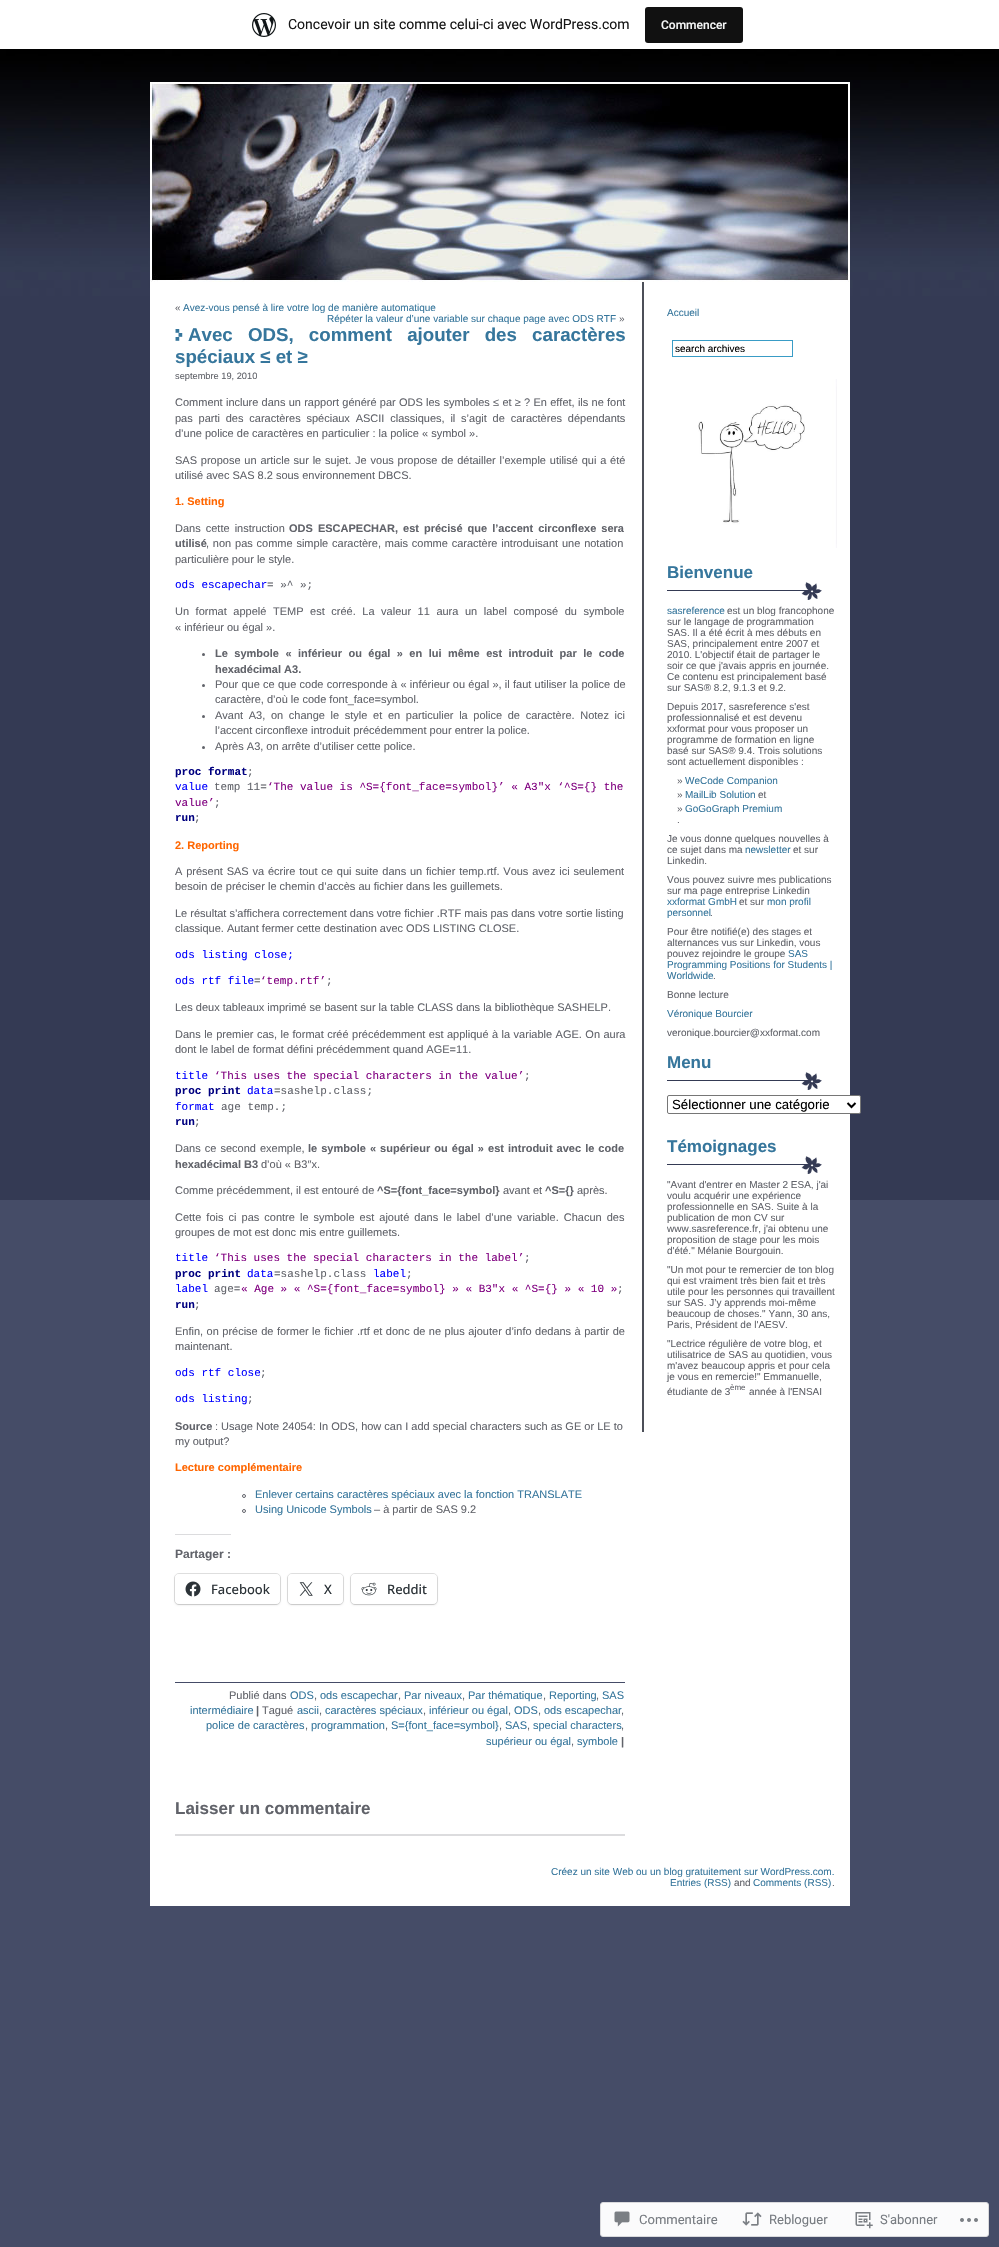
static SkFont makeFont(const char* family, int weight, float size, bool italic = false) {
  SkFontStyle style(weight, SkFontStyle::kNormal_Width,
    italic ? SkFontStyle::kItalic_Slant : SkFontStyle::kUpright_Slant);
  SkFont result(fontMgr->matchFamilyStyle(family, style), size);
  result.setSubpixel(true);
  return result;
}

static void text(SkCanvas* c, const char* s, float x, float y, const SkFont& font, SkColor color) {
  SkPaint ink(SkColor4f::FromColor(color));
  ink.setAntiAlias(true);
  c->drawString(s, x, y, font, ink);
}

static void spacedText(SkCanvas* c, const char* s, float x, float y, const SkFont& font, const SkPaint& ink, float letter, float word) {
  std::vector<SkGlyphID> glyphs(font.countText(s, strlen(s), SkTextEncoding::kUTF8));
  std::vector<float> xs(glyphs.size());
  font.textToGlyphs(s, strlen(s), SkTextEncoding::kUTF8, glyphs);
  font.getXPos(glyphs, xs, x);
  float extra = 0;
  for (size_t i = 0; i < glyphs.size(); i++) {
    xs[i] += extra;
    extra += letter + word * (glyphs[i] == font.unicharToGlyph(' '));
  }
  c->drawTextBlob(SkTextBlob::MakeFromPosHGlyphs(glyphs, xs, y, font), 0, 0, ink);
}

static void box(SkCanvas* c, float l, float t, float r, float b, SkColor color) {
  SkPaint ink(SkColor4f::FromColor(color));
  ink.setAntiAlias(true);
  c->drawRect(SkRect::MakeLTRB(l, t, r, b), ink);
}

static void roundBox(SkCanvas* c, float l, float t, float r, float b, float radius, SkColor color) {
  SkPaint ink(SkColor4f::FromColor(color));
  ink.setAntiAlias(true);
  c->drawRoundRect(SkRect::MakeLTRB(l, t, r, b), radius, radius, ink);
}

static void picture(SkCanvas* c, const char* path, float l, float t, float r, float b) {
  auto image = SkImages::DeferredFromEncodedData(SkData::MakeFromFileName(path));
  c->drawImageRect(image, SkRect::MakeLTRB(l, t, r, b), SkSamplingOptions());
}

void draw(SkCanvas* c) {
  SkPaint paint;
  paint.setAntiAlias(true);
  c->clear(0xff454c67);
  picture(c, "img_01.png", 0, 49, 999, 1200);
  box(c, 0, 0, 999, 49, 0xffffffff);
  picture(c, "img_02.png", 252, 13, 276, 37);
  SkFont face1 = makeFont("Roboto", 400, 14);
  text(c, "Concevoir un site comme celui-ci avec WordPress.com", 288, 29, face1, 0xff171717);
  roundBox(c, 645, 7, 743, 43, 3, 0xff111111);
  SkFont face2 = makeFont("Roboto", 500, 12);
  text(c, "Commencer", 661, 29, face2, 0xfff6f7f7);
  box(c, 150, 282, 850, 1906, 0xffffffff);
  picture(c, "img_03.png", 150, 82, 850, 282);
  SkFont face3 = makeFont("Liberation Sans", 400, 10);
  text(c, "«", 175, 311, face3, 0xff61636a);
  text(c, "Avez-vous pensé à lire votre log de manière automatique", 183, 311, face3, 0xff36769c);
  text(c, "Répéter la valeur d’une variable sur chaque page avec ODS RTF", 327, 322, face3, 0xff36769c);
  text(c, "»", 619, 322, face3, 0xff61636a);
  picture(c, "img_04.png", 175, 329, 183, 341);
  SkFont face4 = makeFont("Liberation Sans", 700, 18.7f);
  paint.setColor(0xff36769c);
  spacedText(c, "Avec ODS, comment ajouter des caractères", 188, 341, face4, paint, 0, 10);
  text(c, "spéciaux ≤ et ≥", 175, 363, face4, 0xff36769c);
  SkFont face5 = makeFont("Liberation Sans", 400, 9.25f);
  text(c, "septembre 19, 2010", 175, 379, face5, 0xff61636a);
  SkFont face6 = makeFont("Liberation Sans", 400, 11);
  paint.setColor(0xff61636a);
  spacedText(c, "Comment inclure dans un rapport généré par ODS les symboles ≤ et ≥ ? En effet, ils ne font", 175, 406, face6, paint, 0, 0.2f);
  spacedText(c, "pas parti des caractères spéciaux ASCII classiques, il s’agit de caractères dépendants", 175, 422, face6, paint, 0, 2.75f);
  text(c, "d’une police de caractères en particulier : la police « symbol ».", 175, 437, face6, 0xff61636a);
  spacedText(c, "SAS propose un article sur le sujet. Je vous propose de détailler l’exemple utilisé qui a été", 175, 464, face6, paint, 0, 0.75f);
  text(c, "utilisé avec SAS 8.2 sous environnement DBCS.", 175, 479, face6, 0xff61636a);
  SkFont face7 = makeFont("Liberation Sans", 700, 11);
  text(c, "1. Setting", 175, 505, face7, 0xffff6600);
  spacedText(c, "Dans cette instruction", 175, 532, face6, paint, 0, 2);
  spacedText(c, "ODS ESCAPECHAR, est précisé que l’accent circonflexe sera", 289, 532, face7, paint, 0, 2);
  text(c, "utilisé", 175, 547, face7, 0xff61636a);
  spacedText(c, ", non pas comme simple caractère, mais comme caractère introduisant une notation", 206, 547, face6, paint, 0, 0.75f);
  text(c, "particulière pour le style.", 175, 563, face6, 0xff61636a);
  SkFont face8 = makeFont("Liberation Mono", 400, 11);
  text(c, "ods escapechar", 175, 588, face8, 0xff0000ff);
  text(c, "= »^ »;", 267, 588, face8, 0xff61636a);
  spacedText(c, "Un format appelé TEMP est créé. La valeur 11 aura un label composé du symbole", 175, 615, face6, paint, 0, 3.5f);
  text(c, "« inférieur ou égal ».", 175, 631, face6, 0xff61636a);
  c->drawCircle(203.5f, 654.5f, 1.5f, paint);
  spacedText(c, "Le symbole « inférieur ou égal » en lui même est introduit par le code", 215, 657, face7, paint, 0, 3.4f);
  text(c, "hexadécimal A3.", 215, 673, face7, 0xff61636a);
  c->drawCircle(203.5f, 685.5f, 1.5f, paint);
  spacedText(c, "Pour que ce que code corresponde à « inférieur ou égal », il faut utiliser la police de", 215, 688, face6, paint, 0, 0.2f);
  text(c, "caractère, d’où le code font_face=symbol.", 215, 703, face6, 0xff61636a);
  c->drawCircle(203.5f, 716.5f, 1.5f, paint);
  spacedText(c, "Avant A3, on change le style et en particulier la police de caractère. Notez ici", 215, 719, face6, paint, 0, 2.6f);
  text(c, "l’accent circonflexe introduit précédemment pour entrer la police.", 215, 734, face6, 0xff61636a);
  c->drawCircle(203.5f, 747.5f, 1.5f, paint);
  text(c, "Après A3, on arrête d’utiliser cette police.", 215, 750, face6, 0xff61636a);
  SkFont face9 = makeFont("Liberation Mono", 700, 11);
  text(c, "proc format", 175, 775, face9, 0xff000080);
  text(c, ";", 247, 775, face8, 0xff61636a);
  text(c, "value", 175, 790, face8, 0xff0000ff);
  text(c, "temp 11=", 214, 790, face8, 0xff61636a);
  text(c, "‘The value is ^S={font_face=symbol}’ « A3″x ‘^S={} the", 267, 790, face8, 0xff800080);
  text(c, "value’", 175, 806, face8, 0xff800080);
  text(c, ";", 214, 806, face8, 0xff61636a);
  text(c, "run", 175, 821, face9, 0xff000080);
  text(c, ";", 194, 821, face8, 0xff61636a);
  text(c, "2. Reporting", 175, 849, face7, 0xffff6600);
  spacedText(c, "A présent SAS va écrire tout ce qui suite dans un fichier temp.rtf. Vous avez ici seulement", 175, 875, face6, paint, 0, 0.75f);
  text(c, "besoin de préciser le chemin d’accès au fichier dans les guillemets.", 175, 890, face6, 0xff61636a);
  text(c, "Le résultat s’affichera correctement dans votre fichier .RTF mais pas dans votre sortie listing", 175, 917, face6, 0xff61636a);
  text(c, "classique. Autant fermer cette destination avec ODS LISTING CLOSE.", 175, 932, face6, 0xff61636a);
  text(c, "ods listing close;", 175, 958, face8, 0xff0000ff);
  text(c, "ods rtf file", 175, 984, face8, 0xff0000ff);
  text(c, "=", 254, 984, face8, 0xff61636a);
  text(c, "‘temp.rtf’", 260, 984, face8, 0xff800080);
  text(c, ";", 326, 984, face8, 0xff61636a);
  text(c, "Les deux tableaux imprimé se basent sur la table CLASS dans la bibliothèque SASHELP.", 175, 1011, face6, 0xff61636a);
  spacedText(c, "Dans le premier cas, le format créé précédemment est appliqué à la variable AGE. On aura", 175, 1038, face6, paint, 0, 0.4f);
  text(c, "dont le label de format défini précédemment quand AGE=11.", 175, 1053, face6, 0xff61636a);
  text(c, "title", 175, 1079, face8, 0xff0000ff);
  text(c, "‘This uses the special characters in the value’", 214, 1079, face8, 0xff800080);
  text(c, ";", 524, 1079, face8, 0xff61636a);
  text(c, "proc print", 175, 1094, face9, 0xff000080);
  text(c, "data", 247, 1094, face8, 0xff0000ff);
  text(c, "=sashelp.class;", 274, 1094, face8, 0xff61636a);
  text(c, "format", 175, 1110, face8, 0xff0000ff);
  text(c, "age temp.;", 221, 1110, face8, 0xff61636a);
  text(c, "run", 175, 1125, face9, 0xff000080);
  text(c, ";", 194, 1125, face8, 0xff61636a);
  spacedText(c, "Dans ce second exemple,", 175, 1152, face6, paint, 0, 1);
  spacedText(c, "le symbole « supérieur ou égal » est introduit avec le code", 308, 1152, face7, paint, 0, 1);
  text(c, "hexadécimal B3", 175, 1168, face7, 0xff61636a);
  text(c, "d’où « B3″x.", 261, 1168, face6, 0xff61636a);
  text(c, "Comme précédemment, il est entouré de", 175, 1194, face6, 0xff61636a);
  text(c, "^S={font_face=symbol}", 377, 1194, face7, 0xff61636a);
  text(c, "avant et", 503, 1194, face6, 0xff61636a);
  text(c, "^S={}", 545, 1194, face7, 0xff61636a);
  text(c, "après.", 577, 1194, face6, 0xff61636a);
  spacedText(c, "Cette fois ci pas contre le symbole est ajouté dans le label d’une variable. Chacun des", 175, 1221, face6, paint, 0, 2);
  text(c, "groupes de mot est donc mis entre guillemets.", 175, 1236, face6, 0xff61636a);
  text(c, "title", 175, 1261, face8, 0xff0000ff);
  text(c, "‘This uses the special characters in the label’", 214, 1261, face8, 0xff800080);
  text(c, ";", 524, 1261, face8, 0xff61636a);
  text(c, "proc print", 175, 1277, face9, 0xff000080);
  text(c, "data", 247, 1277, face8, 0xff0000ff);
  text(c, "=sashelp.class", 274, 1277, face8, 0xff61636a);
  text(c, "label", 373, 1277, face8, 0xff0000ff);
  text(c, ";", 406, 1277, face8, 0xff61636a);
  text(c, "label", 175, 1292, face8, 0xff0000ff);
  text(c, "age=", 214, 1292, face8, 0xff61636a);
  text(c, "« Age » « ^S={font_face=symbol} » « B3″x « ^S={} » « 10 »", 241, 1292, face8, 0xff800080);
  text(c, ";", 617, 1292, face8, 0xff61636a);
  text(c, "run", 175, 1308, face9, 0xff000080);
  text(c, ";", 194, 1308, face8, 0xff61636a);
  spacedText(c, "Enfin, on précise de former le fichier .rtf et donc de ne plus ajouter d’info dedans à partir de", 175, 1335, face6, paint, 0, 0.4f);
  text(c, "maintenant.", 175, 1350, face6, 0xff61636a);
  text(c, "ods rtf close", 175, 1376, face8, 0xff0000ff);
  text(c, ";", 260, 1376, face8, 0xff61636a);
  text(c, "ods listing", 175, 1402, face8, 0xff0000ff);
  text(c, ";", 247, 1402, face8, 0xff61636a);
  text(c, "Source", 175, 1430, face7, 0xff61636a);
  text(c, ": Usage Note 24054: In ODS, how can I add special characters such as GE or LE to", 215, 1430, face6, 0xff61636a);
  text(c, "my output?", 175, 1445, face6, 0xff61636a);
  text(c, "Lecture complémentaire", 175, 1471, face7, 0xffff6600);
  paint.setStyle(SkPaint::kStroke_Style);
  paint.setStrokeWidth(1);
  c->drawCircle(244, 1496, 1.5f, paint);
  text(c, "Enlever certains caractères spéciaux avec la fonction TRANSLATE", 255, 1498, face6, 0xff36769c);
  c->drawCircle(244, 1511, 1.5f, paint);
  text(c, "Using Unicode Symbols", 255, 1513, face6, 0xff36769c);
  text(c, "– à partir de SAS 9.2", 374, 1513, face6, 0xff61636a);
  box(c, 175, 1534, 231, 1535, 0xffdcdcde);
  SkFont face10 = makeFont("Liberation Sans", 700, 12);
  text(c, "Partager :", 175, 1558, face10, 0xff61636a);
  paint.setColor(0xffe0e0e0);
  c->drawRoundRect(SkRect::MakeLTRB(174.5f, 1573.5f, 280.5f, 1604.5f), 4.5f, 4.5f, paint);
  paint.setStyle(SkPaint::kFill_Style);
  paint.setColor(0x1f000000);
  paint.setMaskFilter(SkMaskFilter::MakeBlur(kNormal_SkBlurStyle, 1));
  c->drawRoundRect(SkRect::MakeLTRB(175, 1575, 280, 1605), 4, 4, paint);
  paint.setMaskFilter(nullptr);
  roundBox(c, 175, 1574, 280, 1604, 4, 0xffffffff);
  picture(c, "img_05.png", 185, 1581, 201, 1597);
  SkFont face11 = makeFont("Open Sans", 500, 13);
  text(c, "Facebook", 211, 1594, face11, 0xff2c3338);
  paint.setStyle(SkPaint::kStroke_Style);
  paint.setColor(0xffe0e0e0);
  c->drawRoundRect(SkRect::MakeLTRB(287.5f, 1573.5f, 343.5f, 1604.5f), 4.5f, 4.5f, paint);
  paint.setStyle(SkPaint::kFill_Style);
  paint.setColor(0x1f000000);
  paint.setMaskFilter(SkMaskFilter::MakeBlur(kNormal_SkBlurStyle, 1));
  c->drawRoundRect(SkRect::MakeLTRB(288, 1575, 343, 1605), 4, 4, paint);
  paint.setMaskFilter(nullptr);
  roundBox(c, 288, 1574, 343, 1604, 4, 0xffffffff);
  picture(c, "img_06.png", 299, 1582, 313, 1596);
  text(c, "X", 324, 1594, face11, 0xff2c3338);
  paint.setStyle(SkPaint::kStroke_Style);
  paint.setColor(0xffe0e0e0);
  c->drawRoundRect(SkRect::MakeLTRB(350.5f, 1573.5f, 437.5f, 1604.5f), 4.5f, 4.5f, paint);
  paint.setStyle(SkPaint::kFill_Style);
  paint.setColor(0x1f000000);
  paint.setMaskFilter(SkMaskFilter::MakeBlur(kNormal_SkBlurStyle, 1));
  c->drawRoundRect(SkRect::MakeLTRB(351, 1575, 437, 1605), 4, 4, paint);
  paint.setMaskFilter(nullptr);
  roundBox(c, 351, 1574, 437, 1604, 4, 0xffffffff);
  picture(c, "img_07.png", 361, 1582, 377, 1596);
  text(c, "Reddit", 387, 1594, face11, 0xff2c3338);
  box(c, 175, 1682, 625, 1683, 0xff454c67);
  text(c, "Publié dans", 229, 1699, face6, 0xff61636a);
  text(c, "ODS", 290, 1699, face6, 0xff36769c);
  text(c, ",", 314, 1699, face6, 0xff61636a);
  text(c, "ods escapechar", 320, 1699, face6, 0xff36769c);
  text(c, ",", 398, 1699, face6, 0xff61636a);
  text(c, "Par niveaux", 404, 1699, face6, 0xff36769c);
  text(c, ",", 462, 1699, face6, 0xff61636a);
  text(c, "Par thématique", 468, 1699, face6, 0xff36769c);
  text(c, ",", 543, 1699, face6, 0xff61636a);
  text(c, "Reporting", 549, 1699, face6, 0xff36769c);
  text(c, ",", 596, 1699, face6, 0xff61636a);
  text(c, "SAS", 602, 1699, face6, 0xff36769c);
  text(c, "intermédiaire", 190, 1714, face6, 0xff36769c);
  text(c, "|", 256, 1714, face7, 0xff61636a);
  text(c, "Tagué", 262, 1714, face6, 0xff61636a);
  text(c, "ascii", 297, 1714, face6, 0xff36769c);
  text(c, ",", 319, 1714, face6, 0xff61636a);
  text(c, "caractères spéciaux", 325, 1714, face6, 0xff36769c);
  text(c, ",", 423, 1714, face6, 0xff61636a);
  text(c, "inférieur ou égal", 429, 1714, face6, 0xff36769c);
  text(c, ",", 508, 1714, face6, 0xff61636a);
  text(c, "ODS", 514, 1714, face6, 0xff36769c);
  text(c, ",", 538, 1714, face6, 0xff61636a);
  text(c, "ods escapechar", 544, 1714, face6, 0xff36769c);
  text(c, ",", 621, 1714, face6, 0xff61636a);
  text(c, "police de caractères", 206, 1729, face6, 0xff36769c);
  text(c, ",", 305, 1729, face6, 0xff61636a);
  text(c, "programmation", 311, 1729, face6, 0xff36769c);
  text(c, ",", 385, 1729, face6, 0xff61636a);
  text(c, "S={font_face=symbol}", 391, 1729, face6, 0xff36769c);
  text(c, ",", 499, 1729, face6, 0xff61636a);
  text(c, "SAS", 505, 1729, face6, 0xff36769c);
  text(c, ",", 527, 1729, face6, 0xff61636a);
  text(c, "special characters", 533, 1729, face6, 0xff36769c);
  text(c, ",", 621, 1729, face6, 0xff61636a);
  text(c, "supérieur ou égal", 486, 1745, face6, 0xff36769c);
  text(c, ",", 571, 1745, face6, 0xff61636a);
  text(c, "symbole", 577, 1745, face6, 0xff36769c);
  text(c, "|", 621, 1745, face7, 0xff61636a);
  SkFont face12 = makeFont("Liberation Sans", 700, 17);
  text(c, "Laisser un commentaire", 175, 1814, face12, 0xff61636a);
  box(c, 175, 1834, 625, 1836, 0xffdcdcde);
  box(c, 642, 282, 644, 1432, 0xff4c4f58);
  text(c, "Accueil", 667, 316, face3, 0xff36769c);
  paint.setStyle(SkPaint::kStroke_Style);
  paint.setColor(0xff399cc6);
  c->drawRect(SkRect::MakeLTRB(672.5f, 340.5f, 792.5f, 356.5f), paint);
  text(c, "search archives", 675, 352, face3, 0xff000000);
  picture(c, "img_08.png", 698, 379, 837, 548);
  picture(c, "img_09.png", 667, 582, 822, 600);
  text(c, "Bienvenue", 667, 578, face12, 0xff36769c);
  text(c, "sasreference", 667, 614, face3, 0xff36769c);
  text(c, "est un blog francophone", 727, 614, face3, 0xff61636a);
  text(c, "sur le langage de programmation", 667, 625, face3, 0xff61636a);
  text(c, "SAS. Il a été écrit à mes débuts en", 667, 636, face3, 0xff61636a);
  text(c, "SAS, principalement entre 2007 et", 667, 647, face3, 0xff61636a);
  text(c, "2010. L'objectif était de partager le", 667, 658, face3, 0xff61636a);
  text(c, "soir ce que j'avais appris en journée.", 667, 669, face3, 0xff61636a);
  text(c, "Ce contenu est principalement basé", 667, 680, face3, 0xff61636a);
  text(c, "sur SAS® 8.2, 9.1.3 et 9.2.", 667, 691, face3, 0xff61636a);
  text(c, "Depuis 2017, sasreference s'est", 667, 710, face3, 0xff61636a);
  text(c, "professionnalisé et est devenu", 667, 721, face3, 0xff61636a);
  text(c, "xxformat pour vous proposer un", 667, 732, face3, 0xff61636a);
  text(c, "programme de formation en ligne", 667, 743, face3, 0xff61636a);
  text(c, "basé sur SAS® 9.4. Trois solutions", 667, 754, face3, 0xff61636a);
  text(c, "sont actuellement disponibles :", 667, 765, face3, 0xff61636a);
  text(c, "»", 677, 784, face3, 0xff61636a);
  text(c, "WeCode Companion", 685, 784, face3, 0xff36769c);
  text(c, "»", 677, 798, face3, 0xff61636a);
  text(c, "MailLib Solution", 685, 798, face3, 0xff36769c);
  text(c, "et", 758, 798, face3, 0xff61636a);
  text(c, "»", 677, 812, face3, 0xff61636a);
  text(c, "GoGoGraph Premium", 685, 812, face3, 0xff36769c);
  text(c, ".", 677, 823, face3, 0xff61636a);
  text(c, "Je vous donne quelques nouvelles à", 667, 842, face3, 0xff61636a);
  text(c, "ce sujet dans ma", 667, 853, face3, 0xff61636a);
  text(c, "newsletter", 745, 853, face3, 0xff36769c);
  text(c, "et sur", 793, 853, face3, 0xff61636a);
  text(c, "Linkedin.", 667, 864, face3, 0xff61636a);
  text(c, "Vous pouvez suivre mes publications", 667, 883, face3, 0xff61636a);
  text(c, "sur ma page entreprise Linkedin", 667, 894, face3, 0xff61636a);
  text(c, "xxformat GmbH", 667, 905, face3, 0xff36769c);
  text(c, "et sur", 739, 905, face3, 0xff61636a);
  text(c, "mon profil", 767, 905, face3, 0xff36769c);
  text(c, "personnel", 667, 916, face3, 0xff36769c);
  text(c, ".", 710, 916, face3, 0xff61636a);
  text(c, "Pour être notifié(e) des stages et", 667, 935, face3, 0xff61636a);
  text(c, "alternances vus sur Linkedin, vous", 667, 946, face3, 0xff61636a);
  text(c, "pouvez rejoindre le groupe", 667, 957, face3, 0xff61636a);
  text(c, "SAS", 788, 957, face3, 0xff36769c);
  text(c, "Programming Positions for Students |", 667, 968, face3, 0xff36769c);
  text(c, "Worldwide", 667, 979, face3, 0xff36769c);
  text(c, ".", 713, 979, face3, 0xff61636a);
  text(c, "Bonne lecture", 667, 998, face3, 0xff61636a);
  text(c, "Véronique Bourcier", 667, 1017, face3, 0xff36769c);
  text(c, "veronique.bourcier@xxformat.com", 667, 1036, face3, 0xff61636a);
  picture(c, "img_09.png", 667, 1072, 822, 1090);
  text(c, "Menu", 667, 1068, face12, 0xff36769c);
  paint.setStyle(SkPaint::kFill_Style);
  paint.setColor(0xffffffff);
  c->drawRoundRect(SkRect::MakeLTRB(667.5f, 1095.5f, 860.5f, 1113.5f), 1.5f, 1.5f, paint);
  paint.setStyle(SkPaint::kStroke_Style);
  paint.setColor(0xff767676);
  c->drawRoundRect(SkRect::MakeLTRB(667.5f, 1095.5f, 860.5f, 1113.5f), 1.5f, 1.5f, paint);
  paint.setStrokeWidth(2);
  paint.setColor(0xff000000);
  c->drawPath(SkPathBuilder().moveTo(847.5f, 1103).lineTo(851.5f, 1107).lineTo(855.5f, 1103).detach(), paint);
  SkFont face13 = makeFont("Liberation Sans", 400, 13.25f);
  text(c, "Sélectionner une catégorie", 672, 1109, face13, 0xff000000);
  picture(c, "img_09.png", 667, 1156, 822, 1174);
  text(c, "Témoignages", 667, 1152, face12, 0xff36769c);
  text(c, "\"Avant d'entrer en Master 2 ESA, j'ai", 667, 1188, face3, 0xff61636a);
  text(c, "voulu acquérir une expérience", 667, 1199, face3, 0xff61636a);
  text(c, "professionnelle en SAS. Suite à la", 667, 1210, face3, 0xff61636a);
  text(c, "publication de mon CV sur", 667, 1221, face3, 0xff61636a);
  text(c, "www.sasreference.fr, j'ai obtenu une", 667, 1232, face3, 0xff61636a);
  text(c, "proposition de stage pour les mois", 667, 1243, face3, 0xff61636a);
  text(c, "d'été.\" Mélanie Bourgouin.", 667, 1254, face3, 0xff61636a);
  text(c, "\"Un mot pour te remercier de ton blog", 667, 1273, face3, 0xff61636a);
  text(c, "qui est vraiment très bien fait et très", 667, 1284, face3, 0xff61636a);
  text(c, "utile pour les personnes qui travaillent", 667, 1295, face3, 0xff61636a);
  text(c, "sur SAS. J’y apprends moi-même", 667, 1306, face3, 0xff61636a);
  text(c, "beaucoup de choses.\" Yann, 30 ans,", 667, 1317, face3, 0xff61636a);
  text(c, "Paris, Président de l'AESV.", 667, 1328, face3, 0xff61636a);
  text(c, "\"Lectrice régulière de votre blog, et", 667, 1347, face3, 0xff61636a);
  text(c, "utilisatrice de SAS au quotidien, vous", 667, 1358, face3, 0xff61636a);
  text(c, "m'avez beaucoup appris et pour cela", 667, 1369, face3, 0xff61636a);
  text(c, "je vous en remercie!\" Emmanuelle,", 667, 1380, face3, 0xff61636a);
  text(c, "étudiante de 3", 667, 1395, face3, 0xff61636a);
  SkFont face14 = makeFont("Liberation Sans", 400, 8);
  text(c, "ème", 730, 1390, face14, 0xff61636a);
  text(c, "année à l'ENSAI", 749, 1395, face3, 0xff61636a);
  text(c, "Créez un site Web ou un blog gratuitement sur WordPress.com.", 551, 1875, face3, 0xff36769c);
  text(c, "Entries (RSS)", 670, 1886, face3, 0xff36769c);
  text(c, "and", 734, 1886, face3, 0xff61636a);
  text(c, "Comments (RSS)", 753, 1886, face3, 0xff36769c);
  text(c, ".", 832, 1886, face3, 0xff61636a);
  paint.setStyle(SkPaint::kFill_Style);
  paint.setColor(0xfffbfbfc);
  c->drawRoundRect(SkRect::MakeLTRB(600.5f, 2202.5f, 988.5f, 2236.5f), 2.5f, 2.5f, paint);
  paint.setStyle(SkPaint::kStroke_Style);
  paint.setStrokeWidth(1);
  paint.setColor(0xffd9d9dc);
  c->drawRoundRect(SkRect::MakeLTRB(600.5f, 2202.5f, 988.5f, 2236.5f), 2.5f, 2.5f, paint);
  picture(c, "img_10.png", 614, 2211, 630, 2227);
  SkFont face15 = makeFont("Roboto", 400, 13);
  text(c, "Commentaire", 639, 2224, face15, 0xff777b81);
  picture(c, "img_11.png", 742, 2212, 762, 2226);
  text(c, "Rebloguer", 769, 2224, face15, 0xff777b81);
  picture(c, "img_12.png", 855, 2212, 873, 2229);
  text(c, "S'abonner", 880, 2224, face15, 0xff777b81);
  picture(c, "img_13.png", 960, 2218, 978, 2222);
}
